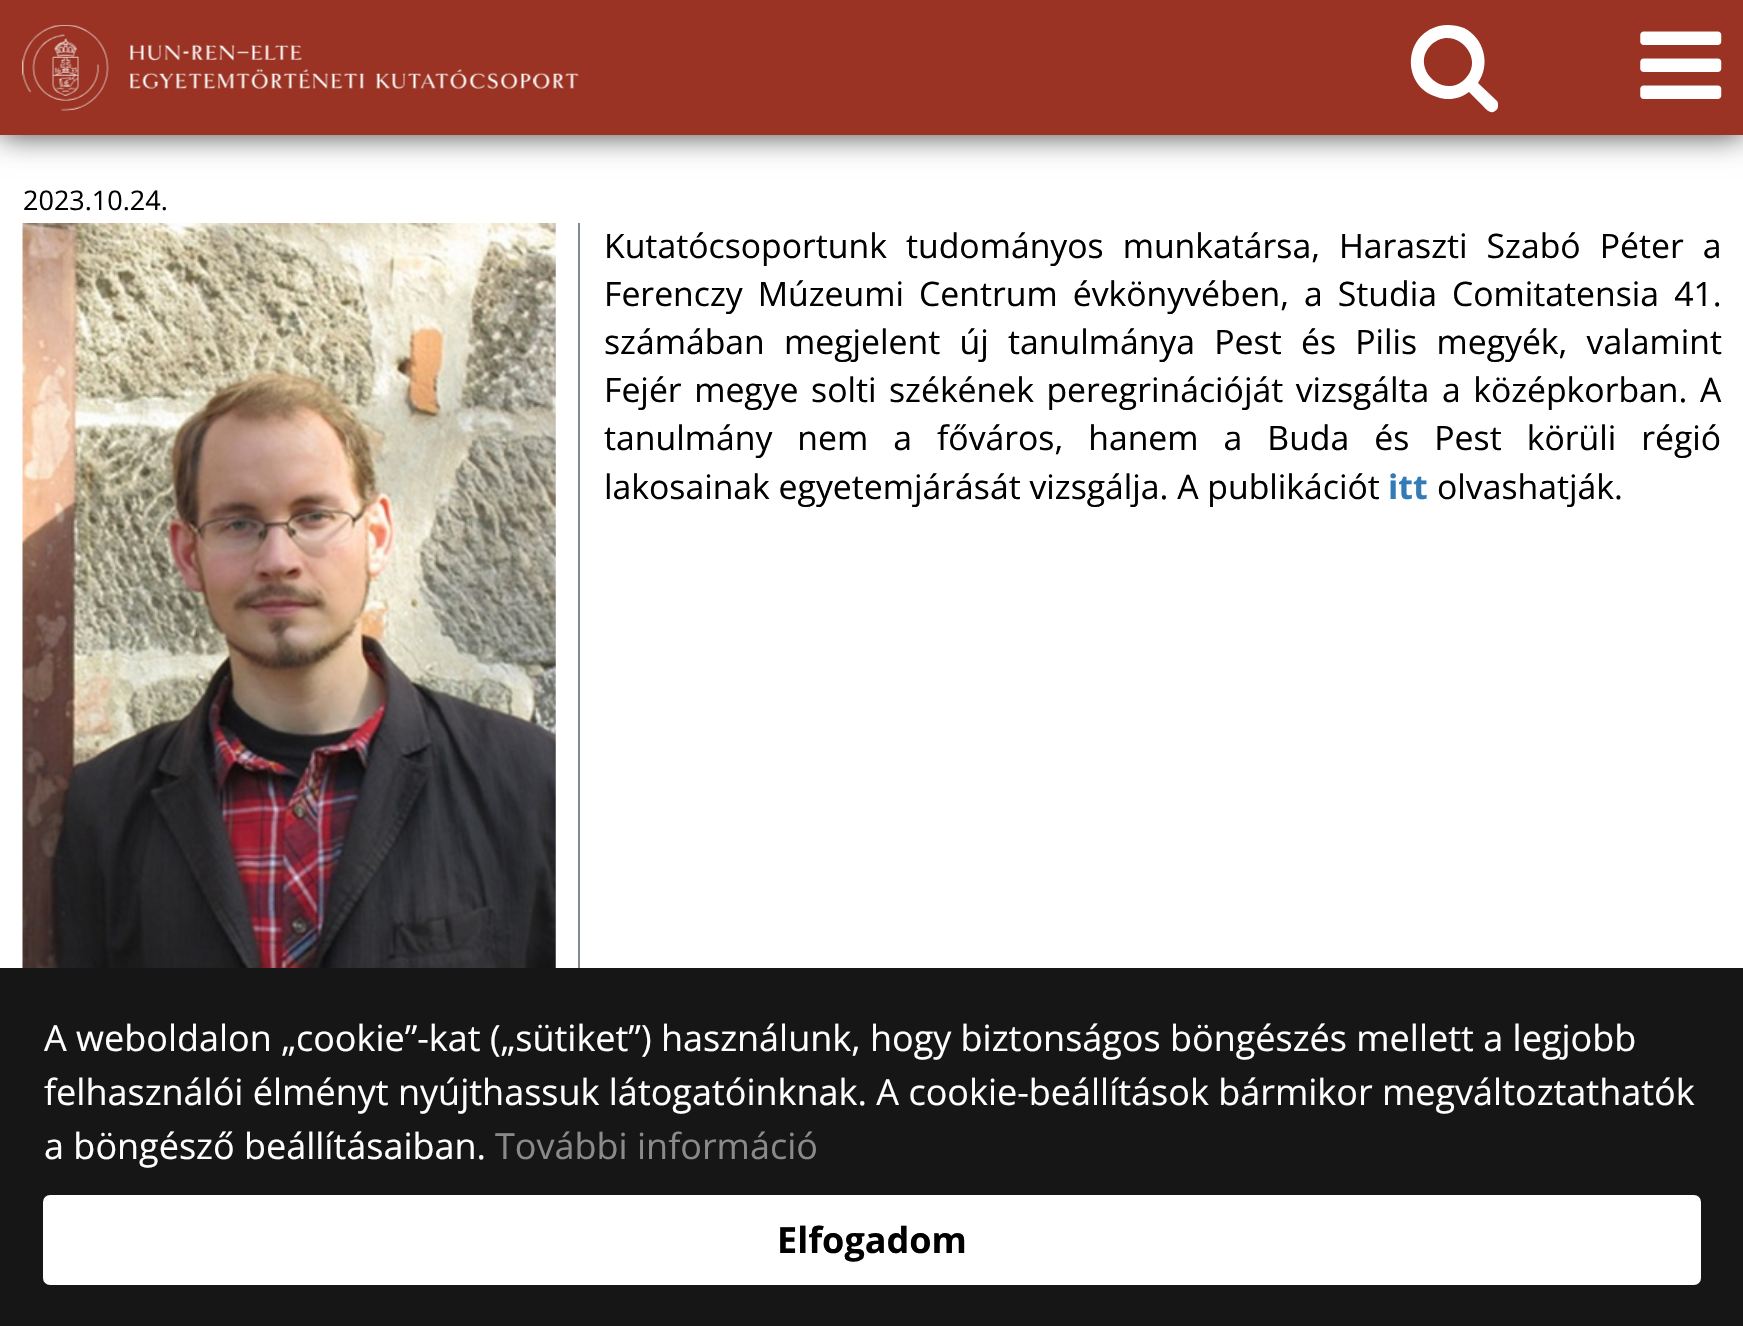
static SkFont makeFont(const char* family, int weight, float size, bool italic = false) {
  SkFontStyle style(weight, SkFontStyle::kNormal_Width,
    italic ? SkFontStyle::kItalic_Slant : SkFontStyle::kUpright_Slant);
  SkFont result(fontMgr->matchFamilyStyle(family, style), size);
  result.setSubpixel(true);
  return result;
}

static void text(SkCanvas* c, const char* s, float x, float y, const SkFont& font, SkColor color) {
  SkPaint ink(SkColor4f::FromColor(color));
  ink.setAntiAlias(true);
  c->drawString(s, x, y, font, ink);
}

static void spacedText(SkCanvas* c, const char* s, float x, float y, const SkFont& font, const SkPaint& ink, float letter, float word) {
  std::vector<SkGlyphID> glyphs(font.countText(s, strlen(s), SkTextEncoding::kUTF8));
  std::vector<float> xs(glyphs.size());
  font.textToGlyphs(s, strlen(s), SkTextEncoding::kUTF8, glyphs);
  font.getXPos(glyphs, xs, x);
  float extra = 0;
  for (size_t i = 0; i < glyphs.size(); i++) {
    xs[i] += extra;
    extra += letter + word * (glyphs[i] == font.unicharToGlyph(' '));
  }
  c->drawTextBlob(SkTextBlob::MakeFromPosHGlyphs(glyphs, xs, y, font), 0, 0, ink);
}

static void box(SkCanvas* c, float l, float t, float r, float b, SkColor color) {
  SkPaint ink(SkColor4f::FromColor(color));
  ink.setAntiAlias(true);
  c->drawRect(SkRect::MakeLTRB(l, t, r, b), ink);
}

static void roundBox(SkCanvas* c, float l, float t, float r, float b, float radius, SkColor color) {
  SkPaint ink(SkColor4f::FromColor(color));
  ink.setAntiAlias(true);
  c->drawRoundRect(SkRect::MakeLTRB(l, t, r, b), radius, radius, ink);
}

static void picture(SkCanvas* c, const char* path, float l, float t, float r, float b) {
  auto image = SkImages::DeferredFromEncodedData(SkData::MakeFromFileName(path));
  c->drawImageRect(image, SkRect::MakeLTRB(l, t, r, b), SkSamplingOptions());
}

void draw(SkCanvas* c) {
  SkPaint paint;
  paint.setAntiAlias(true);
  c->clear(0xffffffff);
  paint.setColor(0xbf000000);
  paint.setMaskFilter(SkMaskFilter::MakeBlur(kNormal_SkBlurStyle, 14.5f));
  c->drawRect(SkRect::MakeLTRB(0, 0, 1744, 135), paint);
  paint.setMaskFilter(nullptr);
  box(c, 0, 0, 1743, 135, 0xff9a3324);
  picture(c, "img_01.png", 22, 25, 579, 111);
  paint.setColor(0xffffffff);
  c->drawPath(SkPathBuilder().moveTo(1465, 79).cubicTo(1487, 57, 1453, 23, 1431, 45).cubicTo(1409, 67, 1443, 101, 1465, 79).close().moveTo(1498, 106).cubicTo(1498, 108, 1497, 110, 1495, 111).cubicTo(1490, 115, 1485, 108, 1481, 104).lineTo(1469, 92).cubicTo(1460, 99, 1448, 101, 1437, 97).cubicTo(1401, 86, 1403, 35, 1439, 26).cubicTo(1447, 24, 1456, 25, 1464, 28).cubicTo(1484, 38, 1491, 64, 1478, 83).lineTo(1497, 101).cubicTo(1498, 102, 1498, 104, 1498, 106).close().detach(), paint);
  picture(c, "img_02.png", 1640, 31, 1722, 99);
  SkFont face1 = makeFont("Open Sans", 400, 27);
  text(c, "2023.10.24.", 23, 210, face1, 0xff000000);
  box(c, 578, 223, 580, 968, 0xff818a93);
  picture(c, "img_03.png", 22, 223, 556, 968);
  SkFont face2 = makeFont("Open Sans", 400, 33.75f);
  paint.setColor(0xff000000);
  spacedText(c, "Kutatócsoportunk tudományos munkatársa, Haraszti Szabó Péter a", 604, 258, face2, paint, 0, 10.25f);
  spacedText(c, "Ferenczy Múzeumi Centrum évkönyvében, a Studia Comitatensia 41.", 604, 306, face2, paint, 0, 6.25f);
  spacedText(c, "számában megjelent új tanulmánya Pest és Pilis megyék, valamint", 604, 354, face2, paint, 0, 10.5f);
  spacedText(c, "Fejér megye solti székének peregrinációját vizsgálta a középkorban. A", 604, 402, face2, paint, 0, 3.75f);
  spacedText(c, "tanulmány nem a főváros, hanem a Buda és Pest körüli régió", 604, 450, face2, paint, 0, 16.25f);
  text(c, "lakosainak egyetemjárását vizsgálja. A publikációt", 604, 499, face2, 0xff000000);
  SkFont face3 = makeFont("Open Sans", 700, 33.75f);
  text(c, "itt", 1388, 499, face3, 0xff337ab7);
  text(c, "olvashatják.", 1437, 499, face2, 0xff000000);
  box(c, 0, 968, 1743, 1326, 0xff161616);
  SkFont face4 = makeFont("Open Sans", 400, 36);
  text(c, "A weboldalon „cookie”-kat („sütiket”) használunk, hogy biztonságos böngészés mellett a legjobb", 44, 1051, face4, 0xffffffff);
  text(c, "felhasználói élményt nyújthassuk látogatóinknak. A cookie-beállítások bármikor megváltoztathatók", 44, 1105, face4, 0xffffffff);
  text(c, "a böngésző beállításaiban.", 44, 1159, face4, 0xffffffff);
  text(c, "További információ", 495, 1159, face4, 0xff8a8a8a);
  roundBox(c, 43, 1195, 1701, 1285, 7, 0xffffffff);
  SkFont face5 = makeFont("Open Sans", 700, 36);
  text(c, "Elfogadom", 777, 1253, face5, 0xff000000);
}
